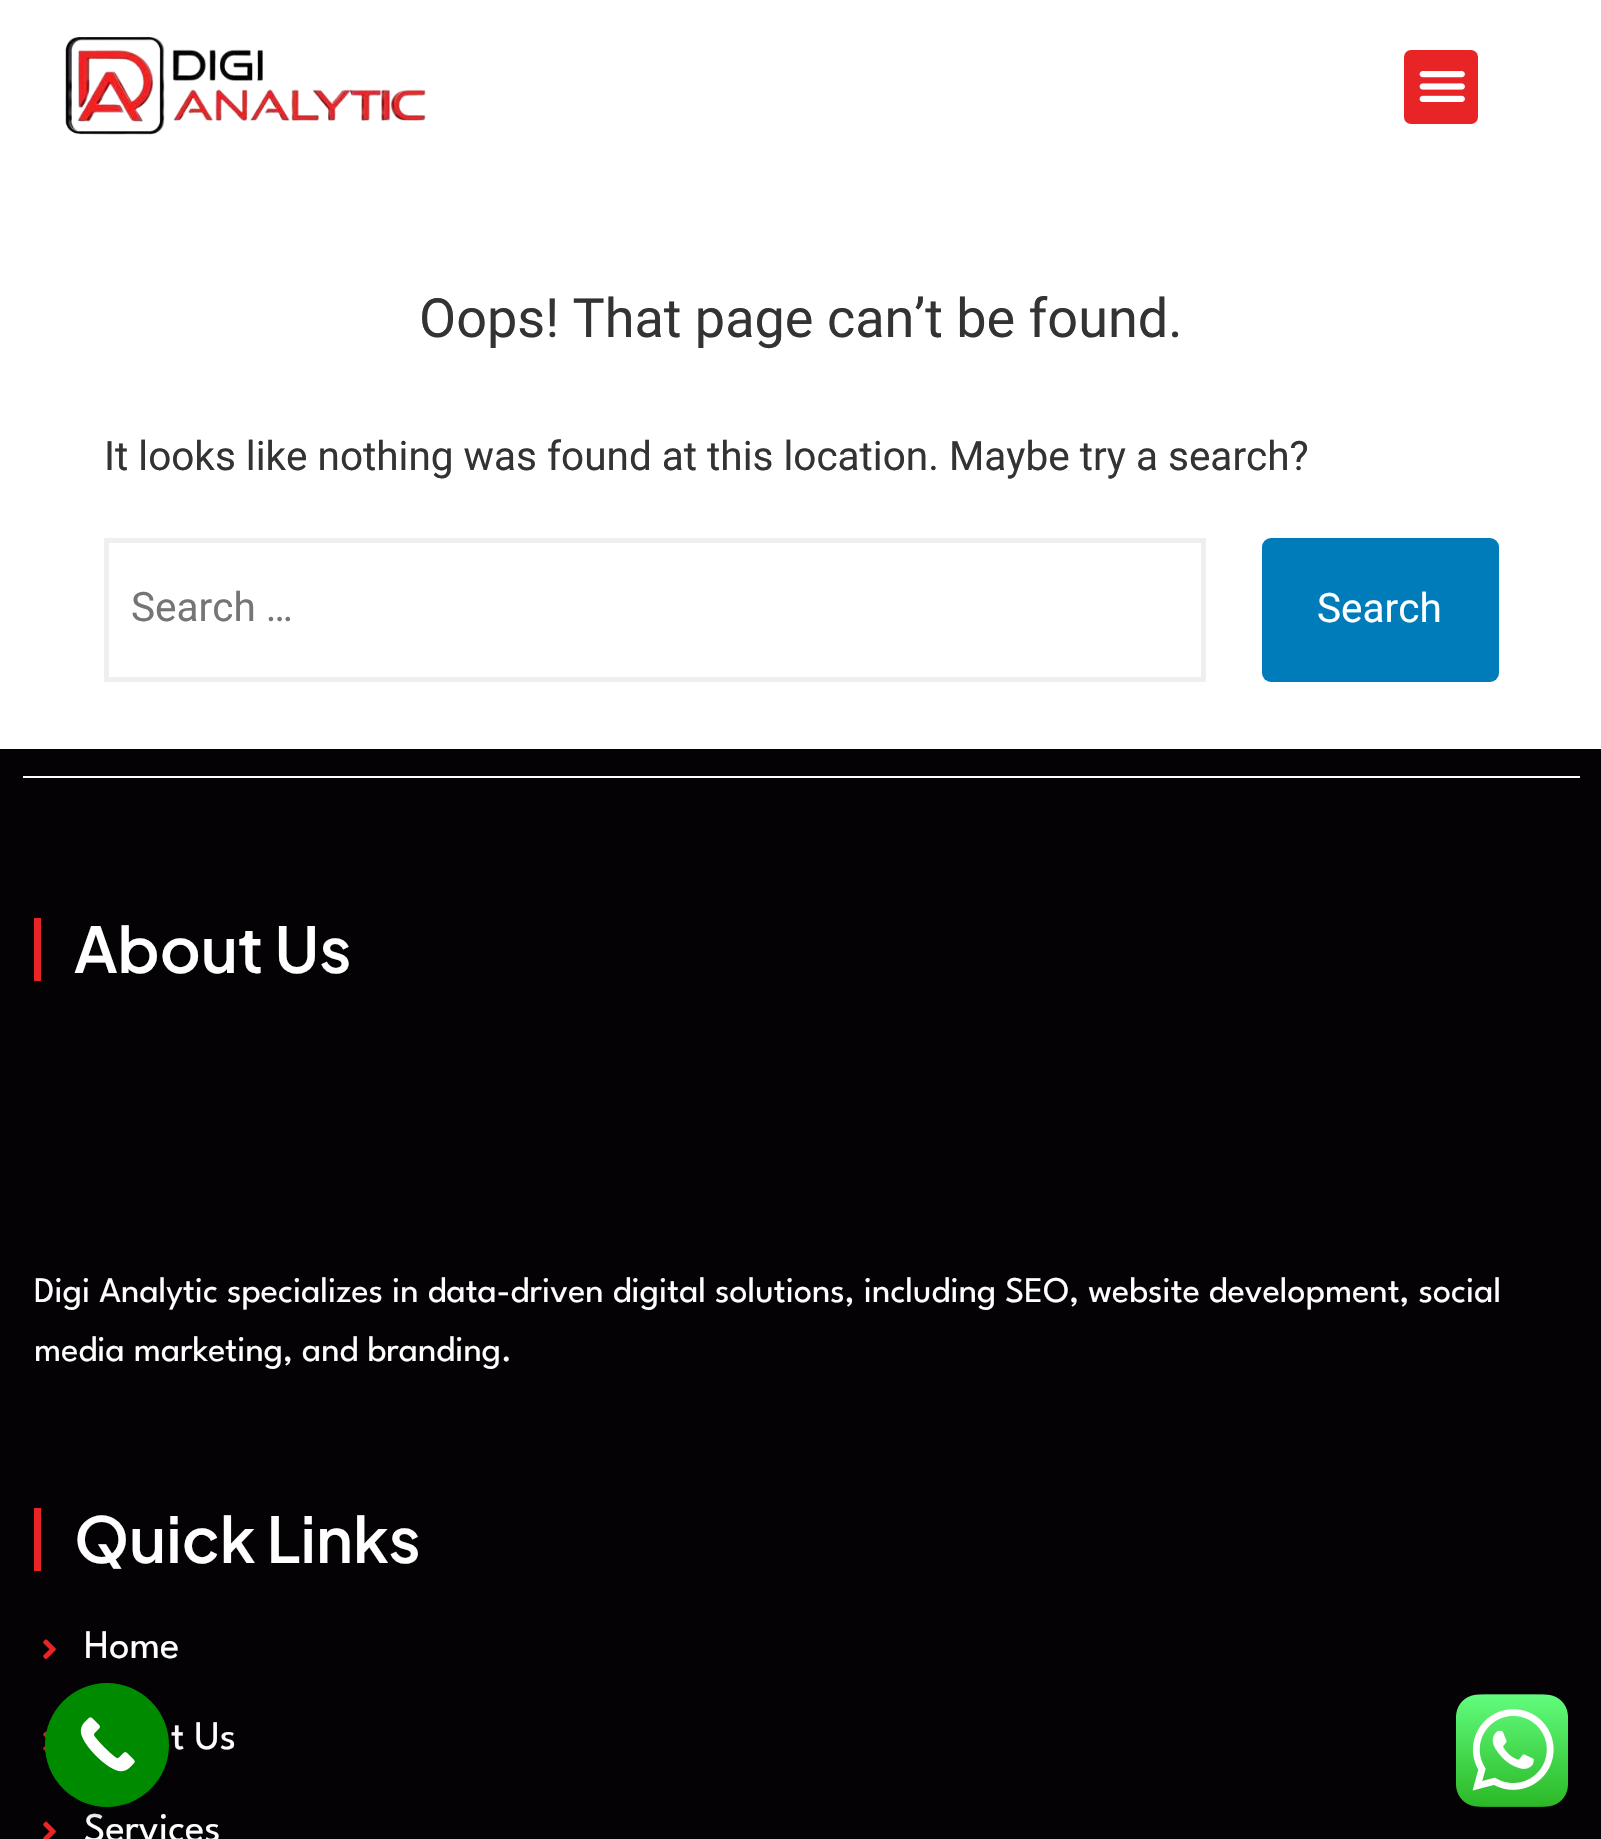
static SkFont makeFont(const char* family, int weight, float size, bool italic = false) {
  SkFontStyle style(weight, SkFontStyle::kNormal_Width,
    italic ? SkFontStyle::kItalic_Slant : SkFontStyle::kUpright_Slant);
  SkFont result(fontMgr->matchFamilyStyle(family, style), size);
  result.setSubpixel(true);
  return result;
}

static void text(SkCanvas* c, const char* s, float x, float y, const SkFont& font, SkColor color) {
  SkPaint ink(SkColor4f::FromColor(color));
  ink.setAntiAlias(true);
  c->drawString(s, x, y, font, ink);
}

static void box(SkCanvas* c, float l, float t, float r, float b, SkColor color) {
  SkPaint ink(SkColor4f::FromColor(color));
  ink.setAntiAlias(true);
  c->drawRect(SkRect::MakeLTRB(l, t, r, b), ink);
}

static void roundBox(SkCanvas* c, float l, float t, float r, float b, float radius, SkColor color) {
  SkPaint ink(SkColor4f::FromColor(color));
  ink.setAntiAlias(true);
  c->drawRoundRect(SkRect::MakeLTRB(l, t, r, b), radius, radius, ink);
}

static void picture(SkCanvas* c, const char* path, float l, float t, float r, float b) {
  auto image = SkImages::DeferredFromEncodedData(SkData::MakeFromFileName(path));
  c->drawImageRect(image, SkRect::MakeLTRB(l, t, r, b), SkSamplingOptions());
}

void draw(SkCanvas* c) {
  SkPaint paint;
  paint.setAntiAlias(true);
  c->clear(0xffffffff);
  picture(c, "img_01.png", 65, 36, 426, 135);
  roundBox(c, 1404, 50, 1478, 124, 7, 0xffe82426);
  picture(c, "img_02.png", 1419, 71, 1465, 102);
  SkFont face1 = makeFont("Roboto", 400, 54);
  text(c, "Oops! That page can’t be found.", 419, 337, face1, 0xff333333);
  SkFont face2 = makeFont("Roboto", 400, 40.5f);
  text(c, "It looks like nothing was found at this location. Maybe try a search?", 104, 470, face2, 0xff333333);
  paint.setStyle(SkPaint::kStroke_Style);
  paint.setStrokeWidth(5);
  paint.setColor(0xffefefef);
  c->drawRect(SkRect::MakeLTRB(106.5f, 540.5f, 1203.5f, 679.5f), paint);
  text(c, "Search …", 131, 621, face2, 0xff757575);
  roundBox(c, 1262, 538, 1499, 682, 9, 0xff007cba);
  text(c, "Search", 1317, 622, face2, 0xffffffff);
  box(c, 0, 749, 1601, 1839, 0xff040205);
  box(c, 23, 776, 1580, 778, 0xfffffefe);
  box(c, 34, 918, 41, 981, 0xffe82426);
  SkFont face3 = makeFont("Plus Jakarta Sans", 600, 63);
  text(c, "About Us", 74, 973, face3, 0xffffffff);
  SkFont face4 = makeFont("League Spartan", 400, 36);
  text(c, "Digi Analytic specializes in data-driven digital solutions, including SEO, website development, social", 34, 1302, face4, 0xffffffff);
  text(c, "media marketing, and branding.", 34, 1361, face4, 0xffffffff);
  box(c, 34, 1508, 41, 1571, 0xffe82426);
  text(c, "Quick Links", 74, 1563, face3, 0xffffffff);
  picture(c, "img_03.png", 43, 1639, 56, 1660);
  SkFont face5 = makeFont("League Spartan", 400, 40.5f);
  text(c, "Home", 84, 1658, face5, 0xffffffff);
  picture(c, "img_04.png", 43, 1731, 47, 1752);
  text(c, "t Us", 171, 1749, face5, 0xffffffff);
  picture(c, "img_05.png", 43, 1821, 56, 1839);
  text(c, "Services", 84, 1841, face5, 0xffffffff);
  paint.setStyle(SkPaint::kFill_Style);
  paint.setColor(0x4d000000);
  paint.setMaskFilter(SkMaskFilter::MakeBlur(kNormal_SkBlurStyle, 7));
  c->drawRoundRect(SkRect::MakeLTRB(45, 1690, 169, 1814), 62, 62, paint);
  paint.setMaskFilter(nullptr);
  paint.setColor(0xff008a00);
  c->drawCircle(107, 1745, 62, paint);
  picture(c, "img_06.png", 80, 1717, 135, 1772);
  picture(c, "img_07.png", 1456, 1694, 1568, 1807);
}
